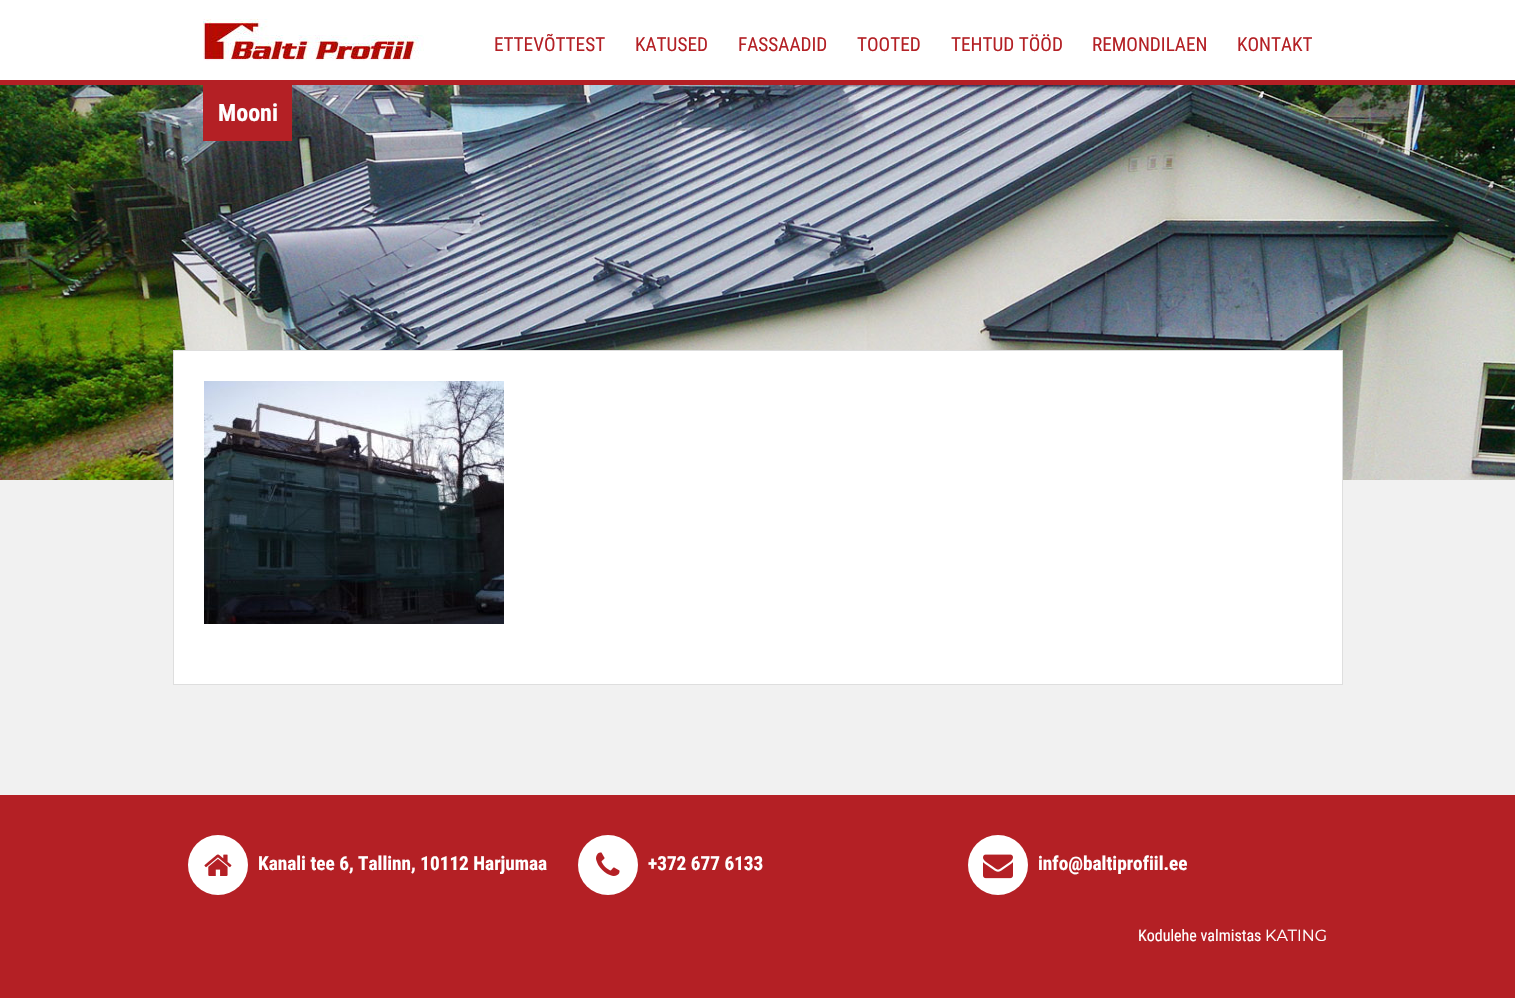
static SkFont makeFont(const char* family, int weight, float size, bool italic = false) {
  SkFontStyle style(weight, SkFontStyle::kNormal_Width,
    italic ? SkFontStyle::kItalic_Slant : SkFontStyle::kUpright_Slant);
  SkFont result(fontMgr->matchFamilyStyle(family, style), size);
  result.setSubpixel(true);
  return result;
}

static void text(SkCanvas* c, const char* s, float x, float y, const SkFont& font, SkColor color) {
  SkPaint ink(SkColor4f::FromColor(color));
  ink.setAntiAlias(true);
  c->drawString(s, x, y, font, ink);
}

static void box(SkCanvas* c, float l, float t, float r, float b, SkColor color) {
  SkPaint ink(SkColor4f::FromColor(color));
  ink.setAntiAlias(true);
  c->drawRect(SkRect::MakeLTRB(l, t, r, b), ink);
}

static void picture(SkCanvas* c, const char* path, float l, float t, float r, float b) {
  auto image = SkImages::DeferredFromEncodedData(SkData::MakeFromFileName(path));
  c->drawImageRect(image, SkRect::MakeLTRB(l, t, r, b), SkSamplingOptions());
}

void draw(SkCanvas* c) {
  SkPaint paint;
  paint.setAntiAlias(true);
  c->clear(0xfff1f1f1);
  box(c, 0, 0, 1515, 80, 0xffffffff);
  picture(c, "img_01.png", 203, 19, 424, 61);
  SkFont face1 = makeFont("Roboto Condensed", 400, 19.25f);
  text(c, "ETTEVÕTTEST", 494, 51, face1, 0xffb42025);
  text(c, "KATUSED", 635, 51, face1, 0xffb42025);
  text(c, "FASSAADID", 738, 51, face1, 0xffb42025);
  text(c, "TOOTED", 857, 51, face1, 0xffb42025);
  text(c, "TEHTUD TÖÖD", 951, 51, face1, 0xffb42025);
  text(c, "REMONDILAEN", 1092, 51, face1, 0xffb42025);
  text(c, "KONTAKT", 1237, 51, face1, 0xffb42025);
  picture(c, "img_02.png", 0, 85, 1515, 480);
  box(c, 0, 80, 1515, 85, 0xffb42025);
  box(c, 203, 85, 292, 141, 0xffb42025);
  SkFont face2 = makeFont("Roboto Condensed", 700, 24);
  text(c, "Mooni", 218, 121, face2, 0xffffffff);
  paint.setColor(0xffffffff);
  c->drawRect(SkRect::MakeLTRB(173.5f, 350.5f, 1342.5f, 684.5f), paint);
  paint.setStyle(SkPaint::kStroke_Style);
  paint.setStrokeWidth(1);
  paint.setColor(0xffdedede);
  c->drawRect(SkRect::MakeLTRB(173.5f, 350.5f, 1342.5f, 684.5f), paint);
  picture(c, "img_03.png", 204, 381, 504, 624);
  box(c, 0, 795, 1515, 998, 0xffb42025);
  paint.setStyle(SkPaint::kFill_Style);
  paint.setColor(0xffffffff);
  c->drawCircle(218, 865, 30, paint);
  picture(c, "img_04.png", 204, 854, 232, 876);
  SkFont face3 = makeFont("Roboto Condensed", 700, 19.25f);
  text(c, "Kanali tee 6, Tallinn, 10112 Harjumaa", 258, 870, face3, 0xffffffff);
  c->drawCircle(608, 865, 30, paint);
  picture(c, "img_05.png", 596, 852, 620, 876);
  text(c, "+372 677 6133", 648, 870, face3, 0xffffffff);
  c->drawCircle(998, 865, 30, paint);
  picture(c, "img_06.png", 983, 854, 1013, 879);
  text(c, "info@baltiprofiil.ee", 1038, 870, face3, 0xffffffff);
  SkFont face4 = makeFont("Roboto Condensed", 400, 16);
  text(c, "Kodulehe valmistas", 1138, 941, face4, 0xffffffff);
  SkFont face5 = makeFont("Montserrat", 400, 16);
  text(c, "KATING", 1265, 941, face5, 0xffffffff);
}
